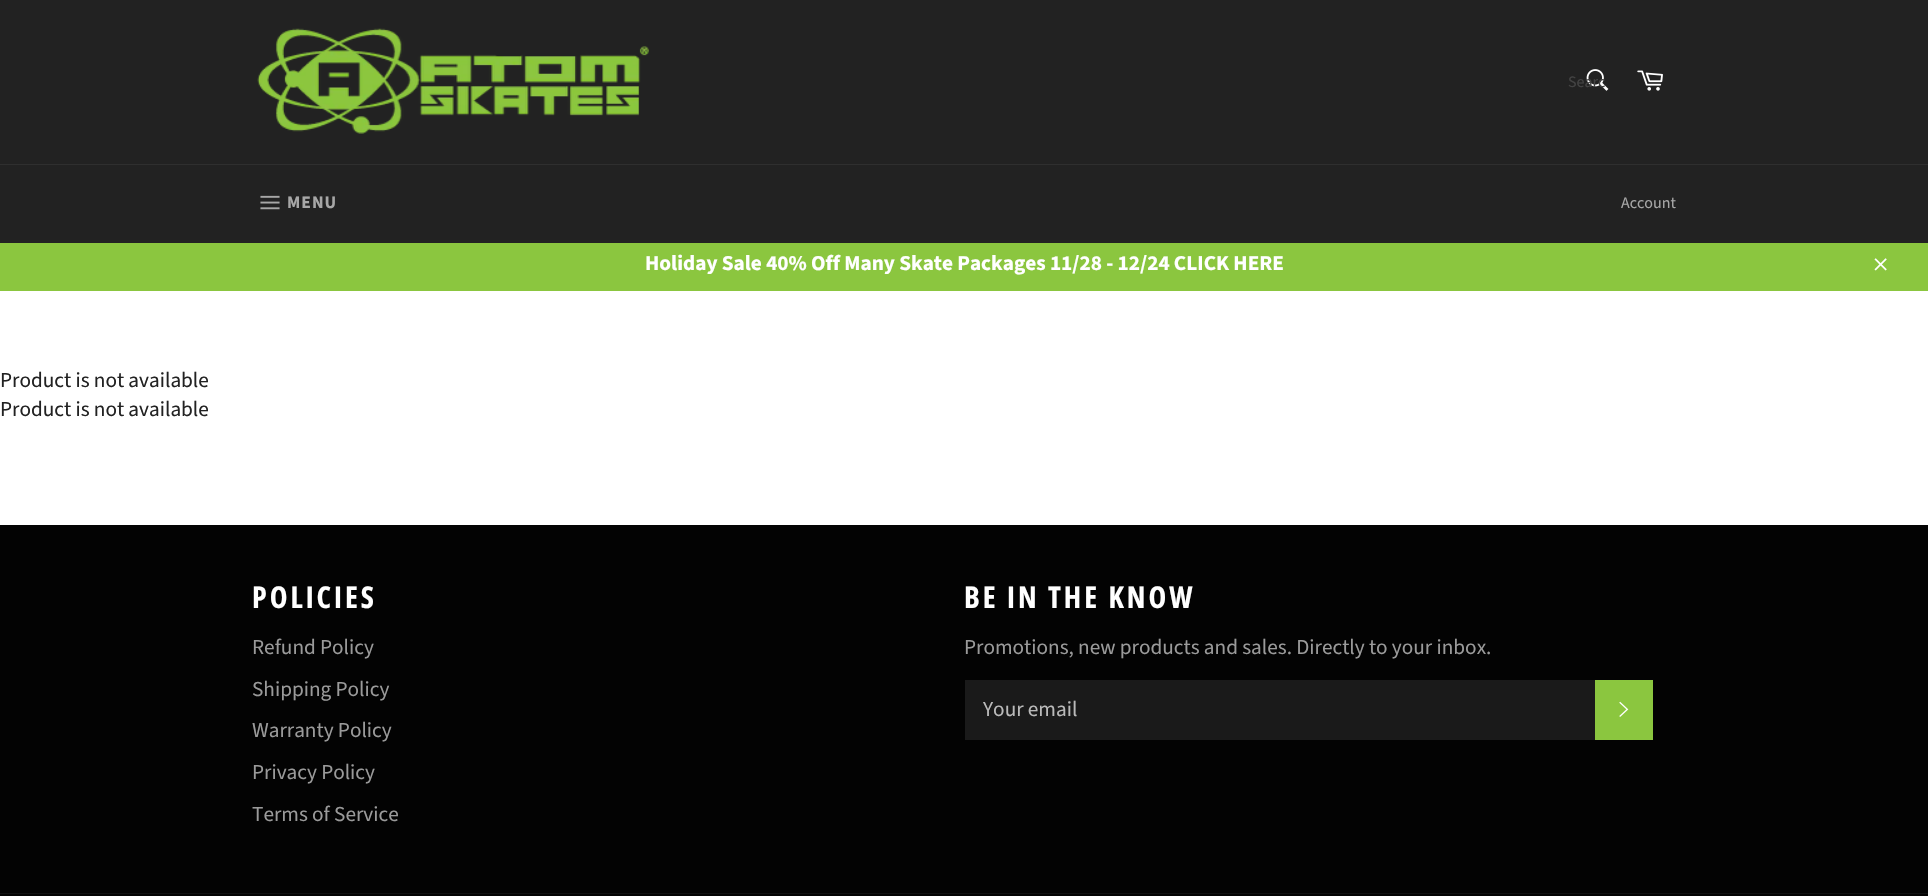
static SkFont makeFont(const char* family, int weight, float size, bool italic = false) {
  SkFontStyle style(weight, SkFontStyle::kNormal_Width,
    italic ? SkFontStyle::kItalic_Slant : SkFontStyle::kUpright_Slant);
  SkFont result(fontMgr->matchFamilyStyle(family, style), size);
  result.setSubpixel(true);
  return result;
}

static void text(SkCanvas* c, const char* s, float x, float y, const SkFont& font, SkColor color) {
  SkPaint ink(SkColor4f::FromColor(color));
  ink.setAntiAlias(true);
  c->drawString(s, x, y, font, ink);
}

static void spacedText(SkCanvas* c, const char* s, float x, float y, const SkFont& font, const SkPaint& ink, float letter, float word) {
  std::vector<SkGlyphID> glyphs(font.countText(s, strlen(s), SkTextEncoding::kUTF8));
  std::vector<float> xs(glyphs.size());
  font.textToGlyphs(s, strlen(s), SkTextEncoding::kUTF8, glyphs);
  font.getXPos(glyphs, xs, x);
  float extra = 0;
  for (size_t i = 0; i < glyphs.size(); i++) {
    xs[i] += extra;
    extra += letter + word * (glyphs[i] == font.unicharToGlyph(' '));
  }
  c->drawTextBlob(SkTextBlob::MakeFromPosHGlyphs(glyphs, xs, y, font), 0, 0, ink);
}

static void box(SkCanvas* c, float l, float t, float r, float b, SkColor color) {
  SkPaint ink(SkColor4f::FromColor(color));
  ink.setAntiAlias(true);
  c->drawRect(SkRect::MakeLTRB(l, t, r, b), ink);
}

static void picture(SkCanvas* c, const char* path, float l, float t, float r, float b) {
  auto image = SkImages::DeferredFromEncodedData(SkData::MakeFromFileName(path));
  c->drawImageRect(image, SkRect::MakeLTRB(l, t, r, b), SkSamplingOptions());
}

void draw(SkCanvas* c) {
  SkPaint paint;
  paint.setAntiAlias(true);
  c->clear(0xff222222);
  picture(c, "img_01.png", 257, 28, 649, 134);
  picture(c, "img_02.png", 1586, 69, 1609, 91);
  SkFont face1 = makeFont("Source Sans Pro", 400, 16);
  text(c, "Searc", 1568, 87, face1, 0xff434343);
  picture(c, "img_03.png", 1637, 70, 1663, 91);
  box(c, 0, 164, 1928, 165, 0xff2f2f2f);
  picture(c, "img_04.png", 260, 195, 280, 210);
  SkFont face2 = makeFont("Source Sans Pro", 700, 17.5f);
  paint.setColor(0xffa7a7a7);
  spacedText(c, "MENU", 287, 208, face2, paint, 1, 0);
  text(c, "Account", 1621, 208, face1, 0xffa7a7a7);
  box(c, 0, 243, 1928, 291, 0xff8bc63f);
  SkFont face3 = makeFont("Source Sans Pro", 700, 21.25f);
  text(c, "Holiday Sale 40% Off Many Skate Packages 11/28 - 12/24 CLICK HERE", 645, 270, face3, 0xffffffff);
  picture(c, "img_05.png", 1874, 258, 1887, 271);
  box(c, 0, 291, 1928, 525, 0xffffffff);
  SkFont face4 = makeFont("Source Sans Pro", 400, 21.25f);
  text(c, "Product is not available", 0, 387, face4, 0xff222222);
  text(c, "Product is not available", 0, 416, face4, 0xff222222);
  box(c, 0, 525, 1928, 896, 0xff030303);
  SkFont face5 = makeFont("Open Sans Condensed", 700, 30);
  paint.setColor(0xffffffff);
  spacedText(c, "POLICIES", 252, 608, face5, paint, 3, 0);
  text(c, "Refund Policy", 252, 654, face4, 0xff9a9a9a);
  text(c, "Shipping Policy", 252, 696, face4, 0xff9a9a9a);
  text(c, "Warranty Policy", 252, 737, face4, 0xff9a9a9a);
  text(c, "Privacy Policy", 252, 779, face4, 0xff9a9a9a);
  text(c, "Terms of Service", 252, 821, face4, 0xff9a9a9a);
  spacedText(c, "BE IN THE KNOW", 964, 608, face5, paint, 3, 0);
  text(c, "Promotions, new products and sales. Directly to your inbox.", 964, 654, face4, 0xff9a9a9a);
  box(c, 965, 680, 1595, 740, 0xff1a1a1a);
  text(c, "Your email", 983, 716, face4, 0xffbababa);
  box(c, 1595, 680, 1653, 740, 0xff8bc63f);
  picture(c, "img_06.png", 1619, 701, 1629, 717);
  box(c, 0, 893, 1928, 894, 0xff101010);
}
